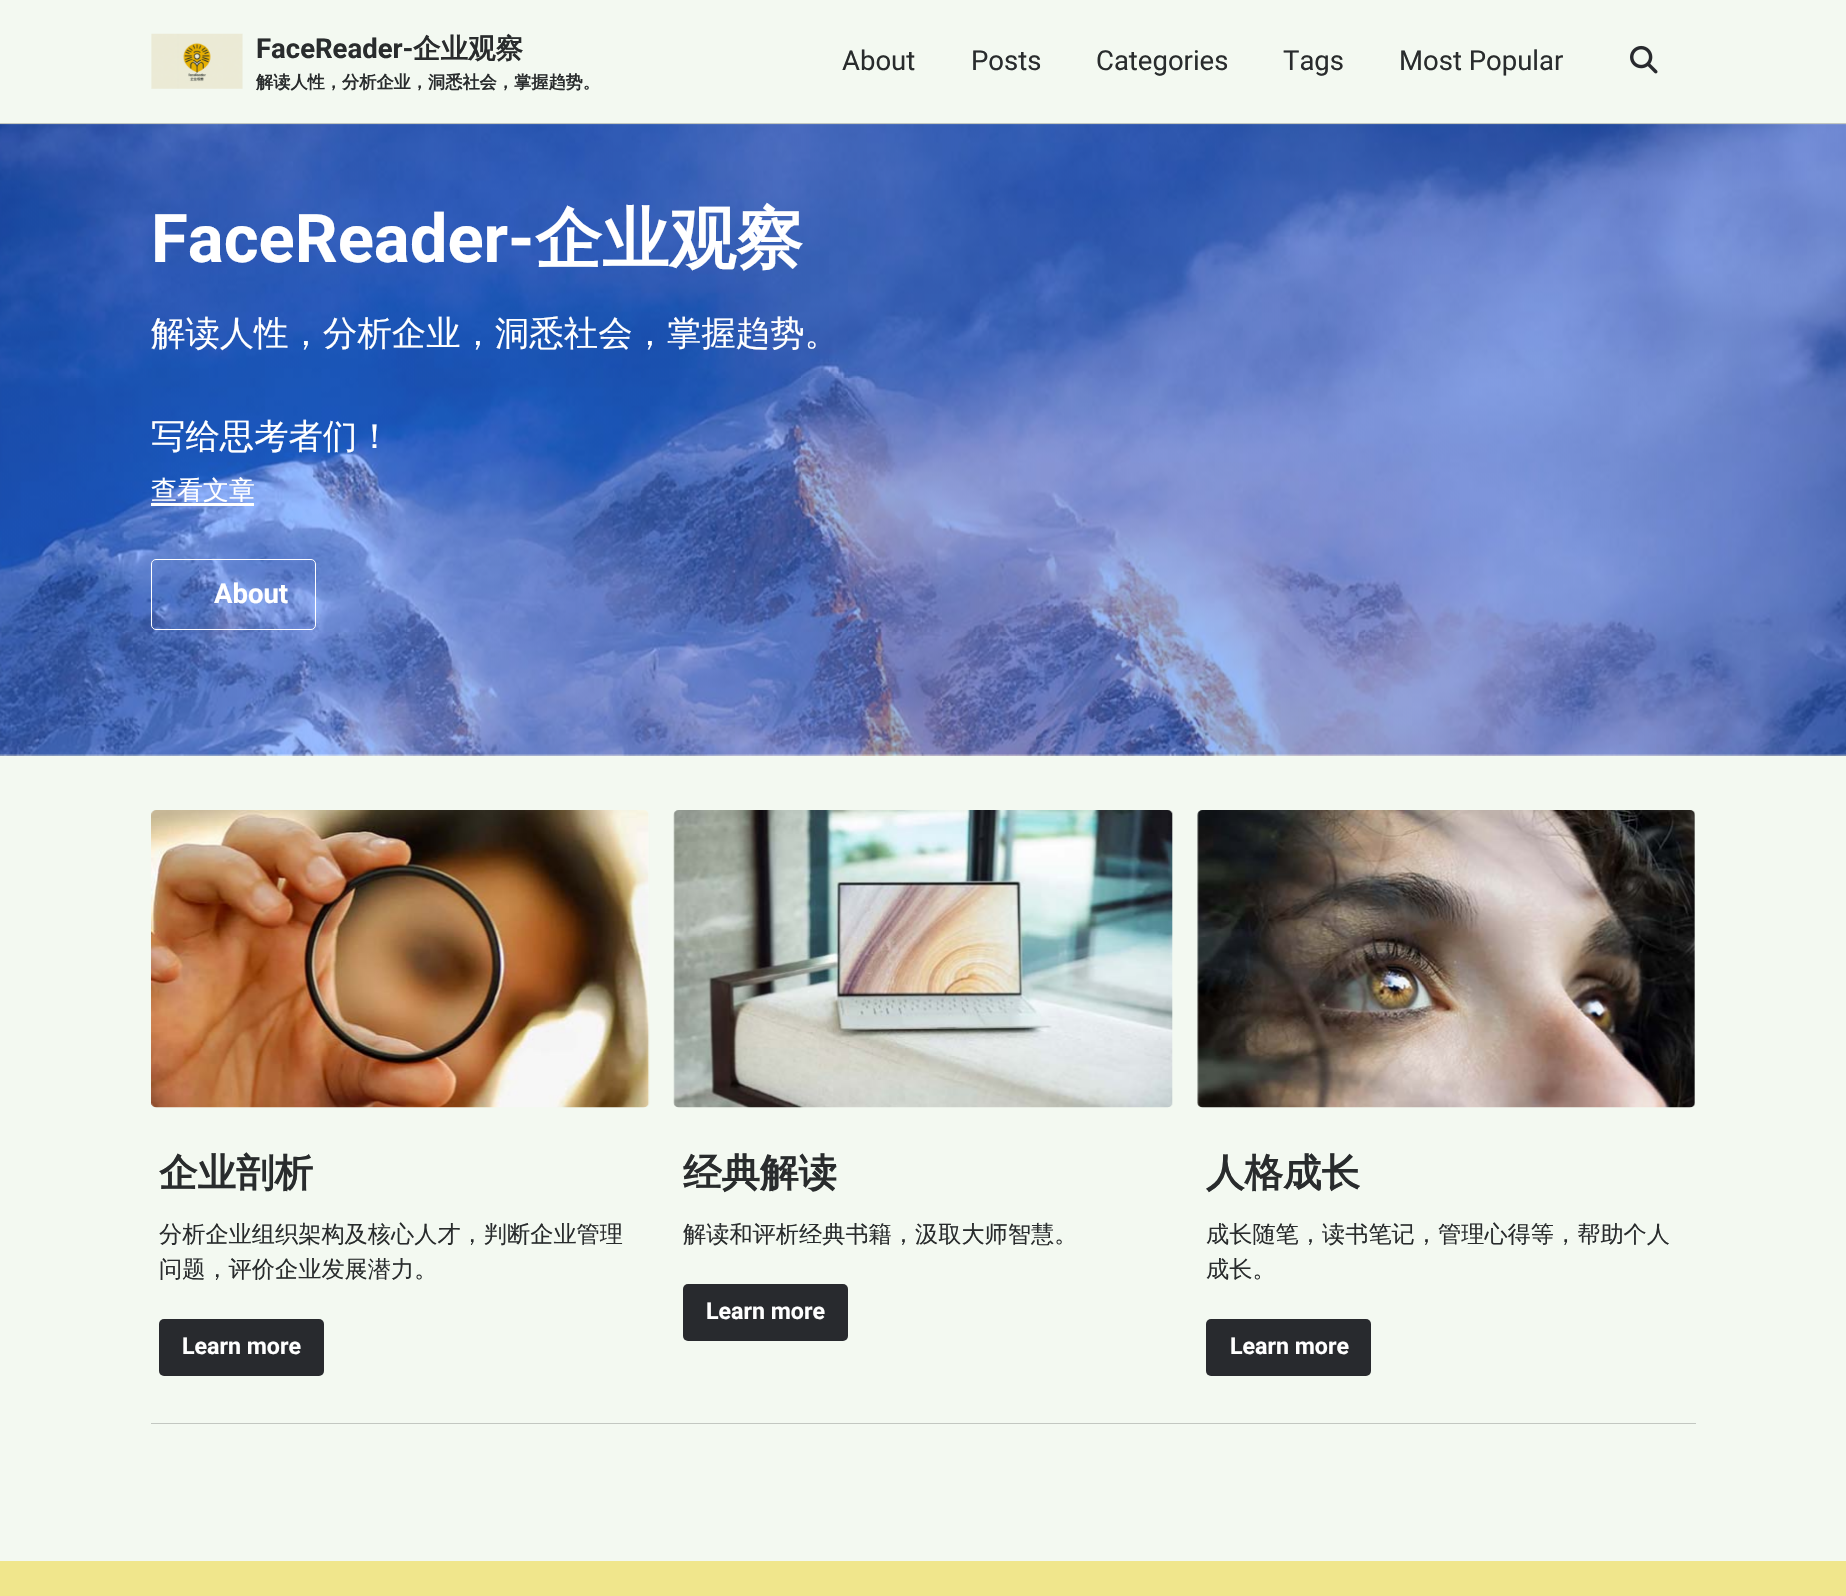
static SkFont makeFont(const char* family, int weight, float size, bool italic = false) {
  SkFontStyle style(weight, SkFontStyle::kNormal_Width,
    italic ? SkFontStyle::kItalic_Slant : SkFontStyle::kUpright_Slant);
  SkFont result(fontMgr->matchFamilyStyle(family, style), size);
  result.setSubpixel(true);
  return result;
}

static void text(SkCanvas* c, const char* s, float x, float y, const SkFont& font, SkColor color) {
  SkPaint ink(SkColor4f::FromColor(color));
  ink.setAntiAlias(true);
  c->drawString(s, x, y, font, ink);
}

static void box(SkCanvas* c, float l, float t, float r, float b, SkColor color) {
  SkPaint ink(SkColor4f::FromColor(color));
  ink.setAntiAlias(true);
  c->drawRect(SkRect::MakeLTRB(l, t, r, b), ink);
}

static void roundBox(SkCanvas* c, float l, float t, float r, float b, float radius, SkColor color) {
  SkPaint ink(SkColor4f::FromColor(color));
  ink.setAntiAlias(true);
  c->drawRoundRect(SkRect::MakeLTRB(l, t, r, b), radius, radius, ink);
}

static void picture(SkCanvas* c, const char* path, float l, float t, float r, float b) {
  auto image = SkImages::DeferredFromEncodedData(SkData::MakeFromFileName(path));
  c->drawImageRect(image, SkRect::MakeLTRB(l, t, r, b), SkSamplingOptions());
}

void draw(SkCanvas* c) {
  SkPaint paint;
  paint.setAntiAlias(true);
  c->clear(0xfff3f9f1);
  box(c, 0, 123, 1846, 124, 0xffc2c7c1);
  picture(c, "img_01.png", 151, 33, 243, 89);
  SkFont face1 = makeFont("Roboto", 700, 27.5f);
  text(c, "FaceReader-", 256, 58, face1, 0xff292c2d);
  SkFont face2 = makeFont("WenQuanYi Zen Hei", 700, 27.5f);
  text(c, "企业观察", 413, 58, face2, 0xff292c2d);
  SkFont face3 = makeFont("WenQuanYi Zen Hei", 700, 17.2f);
  text(c, "解读人性，分析企业，洞悉社会，掌握趋势。", 256, 88, face3, 0xff292c2d);
  SkFont face4 = makeFont("Roboto", 400, 27.5f);
  text(c, "About", 842, 70, face4, 0xff292c2d);
  text(c, "Posts", 971, 70, face4, 0xff292c2d);
  text(c, "Categories", 1096, 70, face4, 0xff292c2d);
  text(c, "Tags", 1283, 70, face4, 0xff292c2d);
  text(c, "Most Popular", 1399, 70, face4, 0xff292c2d);
  picture(c, "img_02.png", 1630, 45, 1658, 74);
  picture(c, "img_03.png", 0, 124, 1846, 756);
  SkFont face5 = makeFont("Roboto", 700, 67);
  text(c, "FaceReader-", 151, 262, face5, 0xffffffff);
  SkFont face6 = makeFont("WenQuanYi Zen Hei", 700, 67);
  text(c, "企业观察", 535, 262, face6, 0xffffffff);
  SkFont face7 = makeFont("WenQuanYi Zen Hei", 500, 34.4f);
  text(c, "解读人性，分析企业，洞悉社会，掌握趋势。", 151, 345, face7, 0xffffffff);
  text(c, "写给思考者们！", 151, 448, face7, 0xffffffff);
  SkFont face8 = makeFont("WenQuanYi Zen Hei", 500, 26);
  text(c, "查看文章", 151, 499, face8, 0xffffffff);
  box(c, 151, 503, 254, 506, 0xffffffff);
  paint.setStyle(SkPaint::kStroke_Style);
  paint.setStrokeWidth(1);
  paint.setColor(0xffffffff);
  c->drawRoundRect(SkRect::MakeLTRB(151.5f, 559.5f, 315.5f, 629.5f), 4.5f, 4.5f, paint);
  text(c, "About", 214, 603, face1, 0xffffffff);
  box(c, 151, 1423, 1696, 1424, 0xffc2c7c1);
  picture(c, "img_04.png", 151, 810, 650, 1108);
  SkFont face9 = makeFont("WenQuanYi Zen Hei", 700, 38.5f);
  text(c, "企业剖析", 159, 1186, face9, 0xff292c2d);
  SkFont face10 = makeFont("WenQuanYi Zen Hei", 500, 23.2f);
  text(c, "分析企业组织架构及核心人才，判断企业管理", 159, 1242, face10, 0xff292c2d);
  text(c, "问题，评价企业发展潜力。", 159, 1277, face10, 0xff292c2d);
  roundBox(c, 159, 1319, 324, 1376, 5, 0xff282a2e);
  SkFont face11 = makeFont("Roboto", 700, 23.2f);
  text(c, "Learn more", 182, 1354, face11, 0xffffffff);
  picture(c, "img_05.png", 673, 810, 1173, 1108);
  text(c, "经典解读", 683, 1186, face9, 0xff292c2d);
  text(c, "解读和评析经典书籍，汲取大师智慧。", 683, 1242, face10, 0xff292c2d);
  roundBox(c, 683, 1284, 848, 1341, 5, 0xff282a2e);
  text(c, "Learn more", 706, 1319, face11, 0xffffffff);
  picture(c, "img_06.png", 1197, 810, 1695, 1108);
  text(c, "人格成长", 1206, 1186, face9, 0xff292c2d);
  text(c, "成长随笔，读书笔记，管理心得等，帮助个人", 1206, 1242, face10, 0xff292c2d);
  text(c, "成长。", 1206, 1277, face10, 0xff292c2d);
  roundBox(c, 1206, 1319, 1371, 1376, 5, 0xff282a2e);
  text(c, "Learn more", 1230, 1354, face11, 0xffffffff);
  box(c, 0, 1561, 1846, 1596, 0xfff0e68c);
}
